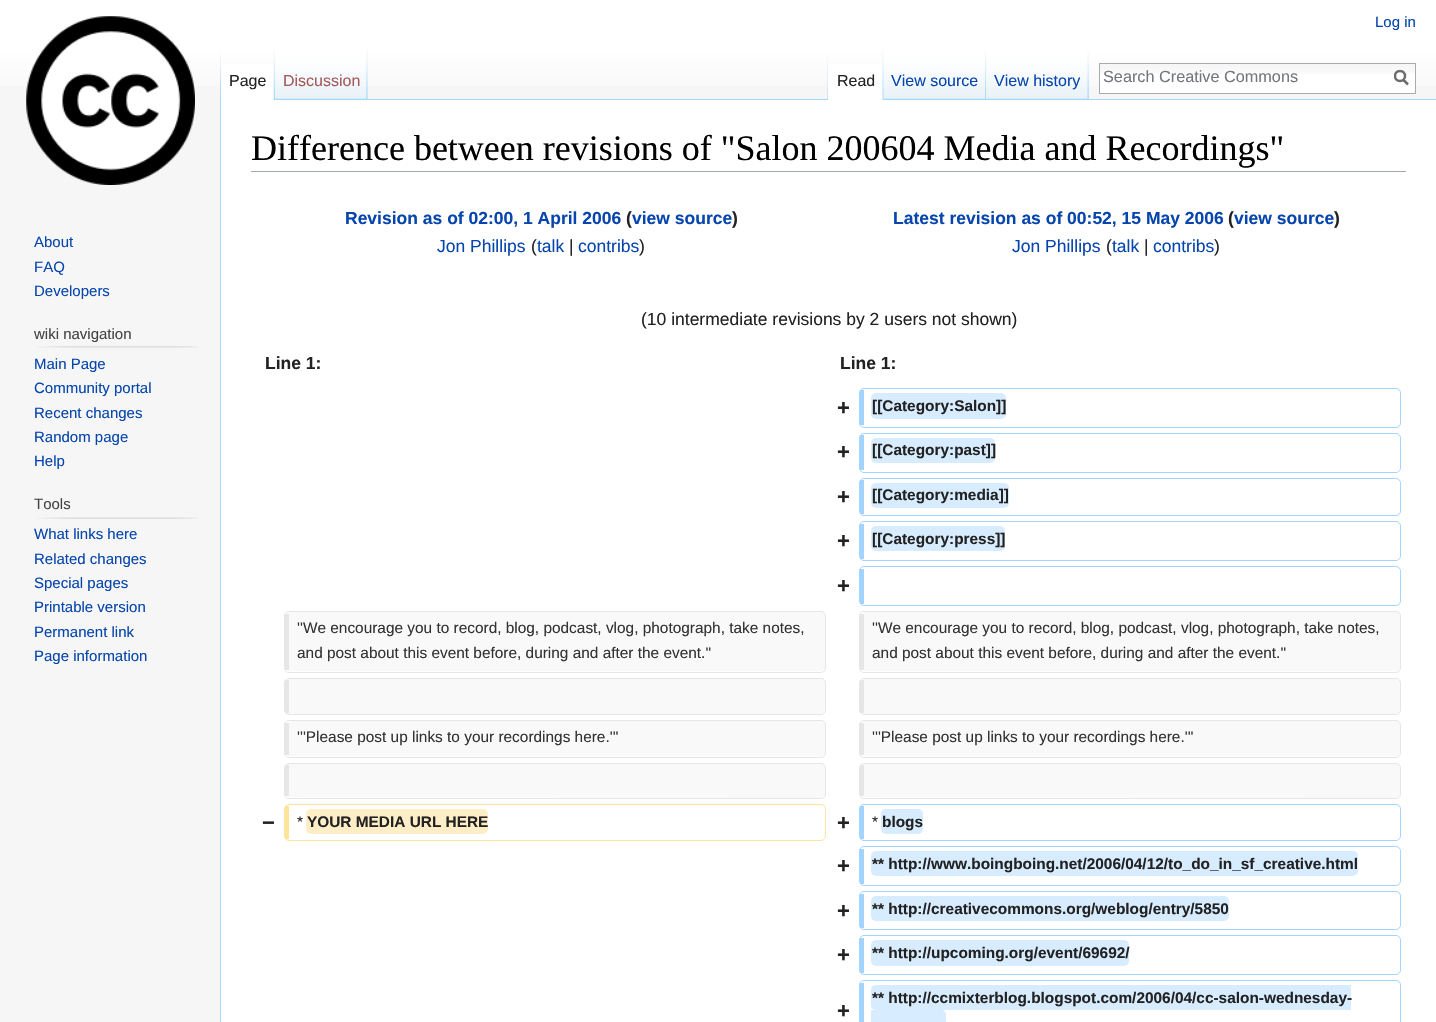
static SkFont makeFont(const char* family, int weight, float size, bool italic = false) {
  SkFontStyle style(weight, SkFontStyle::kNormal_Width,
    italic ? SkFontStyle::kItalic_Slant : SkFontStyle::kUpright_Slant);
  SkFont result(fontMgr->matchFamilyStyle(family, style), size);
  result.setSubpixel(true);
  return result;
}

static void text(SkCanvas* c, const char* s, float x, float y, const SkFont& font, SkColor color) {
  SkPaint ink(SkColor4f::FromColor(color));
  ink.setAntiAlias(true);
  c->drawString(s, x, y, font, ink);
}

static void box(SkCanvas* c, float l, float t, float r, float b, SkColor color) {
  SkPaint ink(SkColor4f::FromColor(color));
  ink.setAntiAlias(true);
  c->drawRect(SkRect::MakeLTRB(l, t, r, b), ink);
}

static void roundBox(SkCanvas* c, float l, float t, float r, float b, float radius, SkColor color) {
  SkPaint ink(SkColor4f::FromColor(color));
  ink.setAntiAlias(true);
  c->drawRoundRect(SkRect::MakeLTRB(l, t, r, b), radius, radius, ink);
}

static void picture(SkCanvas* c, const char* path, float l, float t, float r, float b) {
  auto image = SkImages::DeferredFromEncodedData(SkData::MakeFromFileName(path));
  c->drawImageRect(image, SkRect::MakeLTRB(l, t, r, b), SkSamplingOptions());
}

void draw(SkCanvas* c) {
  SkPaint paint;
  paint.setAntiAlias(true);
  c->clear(0xfff6f6f6);
  {
    const SkColor colors[] = {0xffffffff, 0xfff6f6f6};
    const float stops[] = {0.5f, 1};
    const SkPoint ends[] = {{718, 0}, {718, 100}};
    paint.setShader(SkGradientShader::MakeLinear(ends, colors, stops, 2, SkTileMode::kClamp));
    paint.setAlpha(255);
  }
  c->drawRect(SkRect::MakeLTRB(0, 0, 1436, 86), paint);
  SkFont face1 = makeFont("Liberation Sans", 400, 15);
  text(c, "Log in", 1375, 27, face1, 0xff0645ad);
  picture(c, "img_01.png", 220, 50, 221, 99);
  box(c, 221, 64, 274, 100, 0xffffffff);
  picture(c, "img_02.png", 273, 50, 275, 100);
  SkFont face2 = makeFont("Liberation Sans", 400, 16);
  text(c, "Page", 229, 86, face2, 0xff222222);
  box(c, 367, 50, 368, 100, 0xfff3f3f3);
  picture(c, "img_03.png", 275, 50, 368, 100);
  picture(c, "img_04.png", 366, 52, 368, 100);
  text(c, "Discussion", 283, 86, face2, 0xffa55858);
  picture(c, "img_05.png", 827, 52, 828, 99);
  picture(c, "img_06.png", 1088, 52, 1089, 99);
  box(c, 368, 99, 1436, 100, 0xffa7d7f9);
  box(c, 828, 64, 884, 100, 0xffffffff);
  picture(c, "img_07.png", 882, 52, 884, 100);
  text(c, "Read", 837, 86, face2, 0xff222222);
  picture(c, "img_08.png", 883, 50, 987, 100);
  picture(c, "img_09.png", 985, 50, 987, 99);
  text(c, "View source", 891, 86, face2, 0xff0645ad);
  picture(c, "img_10.png", 986, 50, 1089, 100);
  picture(c, "img_11.png", 1087, 52, 1089, 100);
  text(c, "View history", 994, 86, face2, 0xff0645ad);
  box(c, 1100, 74, 1415, 93, 0xffffffff);
  picture(c, "img_12.png", 1100, 64, 1415, 74);
  paint.setStyle(SkPaint::kStroke_Style);
  paint.setStrokeWidth(1);
  paint.setShader(nullptr);
  paint.setColor(0xffaaaaaa);
  c->drawRect(SkRect::MakeLTRB(1099.5f, 63.5f, 1415.5f, 93.5f), paint);
  SkFont face3 = makeFont("Liberation Sans", 400, 16.25f);
  text(c, "Search Creative Commons", 1103, 82, face3, 0xff72777d);
  paint.setStrokeWidth(2.5f);
  paint.setColor(0xff6c6c6c);
  c->drawPath(SkPathBuilder().moveTo(1408, 84.5f).lineTo(1403, 79.5f).detach(), paint);
  c->save();
  c->clipRect(SkRect::MakeLTRB(1394, 70, 1409, 86));
  c->drawCircle(1400, 76, 5, paint);
  c->restore();
  picture(c, "img_13.png", 26, 16, 195, 185);
  text(c, "About", 34, 247, face1, 0xff0645ad);
  text(c, "FAQ", 34, 272, face1, 0xff0645ad);
  text(c, "Developers", 34, 296, face1, 0xff0645ad);
  text(c, "wiki navigation", 34, 339, face1, 0xff444444);
  picture(c, "img_14.png", 37, 346, 198, 348);
  text(c, "Main Page", 34, 369, face1, 0xff0645ad);
  text(c, "Community portal", 34, 393, face1, 0xff0645ad);
  text(c, "Recent changes", 34, 418, face1, 0xff0645ad);
  text(c, "Random page", 34, 442, face1, 0xff0645ad);
  text(c, "Help", 34, 466, face1, 0xff0645ad);
  text(c, "Tools", 34, 509, face1, 0xff444444);
  picture(c, "img_15.png", 37, 517, 198, 519);
  text(c, "What links here", 34, 539, face1, 0xff0645ad);
  text(c, "Related changes", 34, 564, face1, 0xff0645ad);
  text(c, "Special pages", 34, 588, face1, 0xff0645ad);
  text(c, "Printable version", 34, 612, face1, 0xff0645ad);
  text(c, "Permanent link", 34, 637, face1, 0xff0645ad);
  text(c, "Page information", 34, 661, face1, 0xff0645ad);
  box(c, 221, 100, 1436, 1022, 0xffffffff);
  box(c, 220, 99, 221, 1022, 0xffa7d7f9);
  box(c, 251, 171, 1406, 172, 0xffa2a9b1);
  SkFont face4 = makeFont("Liberation Serif", 400, 36);
  text(c, "Difference between revisions of \"Salon 200604 Media and Recordings\"", 251, 160, face4, 0xff000000);
  SkFont face5 = makeFont("Liberation Sans", 700, 17.5f);
  text(c, "Revision as of 02:00, 1 April 2006", 345, 224, face5, 0xff0645ad);
  text(c, "(", 626, 224, face5, 0xff222222);
  text(c, "view source", 632, 224, face5, 0xff0645ad);
  text(c, ")", 732, 224, face5, 0xff222222);
  SkFont face6 = makeFont("Liberation Sans", 400, 17.5f);
  text(c, "Jon Phillips", 437, 252, face6, 0xff0645ad);
  text(c, "(", 531, 252, face6, 0xff222222);
  text(c, "talk", 537, 252, face6, 0xff0645ad);
  text(c, "|", 569, 252, face6, 0xff222222);
  text(c, "contribs", 578, 252, face6, 0xff0645ad);
  text(c, ")", 639, 252, face6, 0xff222222);
  text(c, "Latest revision as of 00:52, 15 May 2006", 893, 224, face5, 0xff0645ad);
  text(c, "(", 1228, 224, face5, 0xff222222);
  text(c, "view source", 1234, 224, face5, 0xff0645ad);
  text(c, ")", 1334, 224, face5, 0xff222222);
  text(c, "Jon Phillips", 1012, 252, face6, 0xff0645ad);
  text(c, "(", 1106, 252, face6, 0xff222222);
  text(c, "talk", 1112, 252, face6, 0xff0645ad);
  text(c, "|", 1144, 252, face6, 0xff222222);
  text(c, "contribs", 1153, 252, face6, 0xff0645ad);
  text(c, ")", 1214, 252, face6, 0xff222222);
  text(c, "(10 intermediate revisions by 2 users not shown)", 641, 325, face6, 0xff222222);
  text(c, "Line 1:", 265, 369, face5, 0xff222222);
  text(c, "Line 1:", 840, 369, face5, 0xff222222);
  SkFont face7 = makeFont("Liberation Sans", 700, 22);
  text(c, "+", 837, 415, face7, 0xff222222);
  paint.setStrokeWidth(1);
  paint.setColor(0xffa3d3ff);
  c->drawRoundRect(SkRect::MakeLTRB(859.5f, 388.5f, 1400.5f, 427.5f), 4.5f, 4.5f, paint);
  box(c, 860, 390, 864, 425, 0xffa3d3ff);
  roundBox(c, 871, 393, 1006, 419, 5, 0xffd8ecff);
  SkFont face8 = makeFont("Liberation Sans", 700, 15.4f);
  text(c, "[[Category:Salon]]", 872, 411, face8, 0xff222222);
  text(c, "+", 837, 459, face7, 0xff222222);
  c->drawRoundRect(SkRect::MakeLTRB(859.5f, 433.5f, 1400.5f, 472.5f), 4.5f, 4.5f, paint);
  box(c, 860, 435, 864, 470, 0xffa3d3ff);
  roundBox(c, 871, 438, 995, 463, 5, 0xffd8ecff);
  text(c, "[[Category:past]]", 872, 455, face8, 0xff222222);
  text(c, "+", 837, 504, face7, 0xff222222);
  c->drawRoundRect(SkRect::MakeLTRB(859.5f, 478.5f, 1400.5f, 515.5f), 4.5f, 4.5f, paint);
  box(c, 860, 480, 864, 514, 0xffa3d3ff);
  roundBox(c, 871, 483, 1009, 508, 5, 0xffd8ecff);
  text(c, "[[Category:media]]", 872, 500, face8, 0xff222222);
  text(c, "+", 837, 548, face7, 0xff222222);
  c->drawRoundRect(SkRect::MakeLTRB(859.5f, 521.5f, 1400.5f, 560.5f), 4.5f, 4.5f, paint);
  box(c, 860, 524, 864, 559, 0xffa3d3ff);
  roundBox(c, 871, 526, 1005, 551, 5, 0xffd8ecff);
  text(c, "[[Category:press]]", 872, 544, face8, 0xff222222);
  text(c, "+", 837, 593, face7, 0xff222222);
  c->drawRoundRect(SkRect::MakeLTRB(859.5f, 566.5f, 1400.5f, 605.5f), 4.5f, 4.5f, paint);
  box(c, 860, 569, 864, 604, 0xffa3d3ff);
  paint.setStyle(SkPaint::kFill_Style);
  paint.setColor(0xfff9f9f9);
  c->drawPath(SkPathBuilder().moveTo(289, 612).lineTo(821, 612).cubicTo(823, 612, 825, 614, 825, 616).lineTo(825, 667).cubicTo(825, 670, 823, 671, 821, 671).lineTo(289, 671).close().detach(), paint);
  paint.setStyle(SkPaint::kStroke_Style);
  paint.setColor(0xffe6e6e6);
  c->drawRoundRect(SkRect::MakeLTRB(284.5f, 611.5f, 825.5f, 672.5f), 4.5f, 4.5f, paint);
  box(c, 285, 614, 289, 670, 0xffe6e6e6);
  SkFont face9 = makeFont("Liberation Sans", 400, 15.4f);
  text(c, "''We encourage you to record, blog, podcast, vlog, photograph, take notes,", 297, 633, face9, 0xff333333);
  text(c, "and post about this event before, during and after the event.''", 297, 658, face9, 0xff333333);
  paint.setStyle(SkPaint::kFill_Style);
  paint.setColor(0xfff9f9f9);
  c->drawPath(SkPathBuilder().moveTo(864, 612).lineTo(1396, 612).cubicTo(1398, 612, 1400, 614, 1400, 616).lineTo(1400, 667).cubicTo(1400, 670, 1398, 671, 1396, 671).lineTo(864, 671).close().detach(), paint);
  paint.setStyle(SkPaint::kStroke_Style);
  paint.setColor(0xffe6e6e6);
  c->drawRoundRect(SkRect::MakeLTRB(859.5f, 611.5f, 1400.5f, 672.5f), 4.5f, 4.5f, paint);
  box(c, 860, 614, 864, 670, 0xffe6e6e6);
  text(c, "''We encourage you to record, blog, podcast, vlog, photograph, take notes,", 872, 633, face9, 0xff333333);
  text(c, "and post about this event before, during and after the event.''", 872, 658, face9, 0xff333333);
  paint.setStyle(SkPaint::kFill_Style);
  paint.setColor(0xfff9f9f9);
  c->drawPath(SkPathBuilder().moveTo(289, 679).lineTo(821, 679).cubicTo(823, 679, 825, 680, 825, 683).lineTo(825, 710).cubicTo(825, 712, 823, 714, 821, 714).lineTo(289, 714).close().detach(), paint);
  paint.setStyle(SkPaint::kStroke_Style);
  paint.setColor(0xffe6e6e6);
  c->drawRoundRect(SkRect::MakeLTRB(284.5f, 678.5f, 825.5f, 714.5f), 4.5f, 4.5f, paint);
  box(c, 285, 680, 289, 713, 0xffe6e6e6);
  paint.setStyle(SkPaint::kFill_Style);
  paint.setColor(0xfff9f9f9);
  c->drawPath(SkPathBuilder().moveTo(864, 679).lineTo(1396, 679).cubicTo(1398, 679, 1400, 680, 1400, 683).lineTo(1400, 710).cubicTo(1400, 712, 1398, 714, 1396, 714).lineTo(864, 714).close().detach(), paint);
  paint.setStyle(SkPaint::kStroke_Style);
  paint.setColor(0xffe6e6e6);
  c->drawRoundRect(SkRect::MakeLTRB(859.5f, 678.5f, 1400.5f, 714.5f), 4.5f, 4.5f, paint);
  box(c, 860, 680, 864, 713, 0xffe6e6e6);
  paint.setStyle(SkPaint::kFill_Style);
  paint.setColor(0xfff9f9f9);
  c->drawPath(SkPathBuilder().moveTo(289, 721).lineTo(821, 721).cubicTo(823, 721, 825, 723, 825, 725).lineTo(825, 752).cubicTo(825, 755, 823, 756, 821, 756).lineTo(289, 756).close().detach(), paint);
  paint.setStyle(SkPaint::kStroke_Style);
  paint.setColor(0xffe6e6e6);
  c->drawRoundRect(SkRect::MakeLTRB(284.5f, 720.5f, 825.5f, 757.5f), 4.5f, 4.5f, paint);
  box(c, 285, 723, 289, 755, 0xffe6e6e6);
  text(c, "'''Please post up links to your recordings here.'''", 297, 742, face9, 0xff333333);
  paint.setStyle(SkPaint::kFill_Style);
  paint.setColor(0xfff9f9f9);
  c->drawPath(SkPathBuilder().moveTo(864, 721).lineTo(1396, 721).cubicTo(1398, 721, 1400, 723, 1400, 725).lineTo(1400, 752).cubicTo(1400, 755, 1398, 756, 1396, 756).lineTo(864, 756).close().detach(), paint);
  paint.setStyle(SkPaint::kStroke_Style);
  paint.setColor(0xffe6e6e6);
  c->drawRoundRect(SkRect::MakeLTRB(859.5f, 720.5f, 1400.5f, 757.5f), 4.5f, 4.5f, paint);
  box(c, 860, 723, 864, 755, 0xffe6e6e6);
  text(c, "'''Please post up links to your recordings here.'''", 872, 742, face9, 0xff333333);
  paint.setStyle(SkPaint::kFill_Style);
  paint.setColor(0xfff9f9f9);
  c->drawPath(SkPathBuilder().moveTo(289, 764).lineTo(821, 764).cubicTo(827, 764, 825, 773, 825, 776).lineTo(825, 794).cubicTo(825, 796, 823, 797, 821, 798).lineTo(289, 797).close().detach(), paint);
  paint.setStyle(SkPaint::kStroke_Style);
  paint.setColor(0xffe6e6e6);
  c->drawRoundRect(SkRect::MakeLTRB(284.5f, 763.5f, 825.5f, 798.5f), 4.5f, 4.5f, paint);
  box(c, 285, 765, 289, 796, 0xffe6e6e6);
  paint.setStyle(SkPaint::kFill_Style);
  paint.setColor(0xfff9f9f9);
  c->drawPath(SkPathBuilder().moveTo(864, 764).lineTo(1396, 764).cubicTo(1402, 764, 1400, 773, 1400, 776).lineTo(1400, 794).cubicTo(1400, 796, 1398, 797, 1396, 798).lineTo(864, 797).close().detach(), paint);
  paint.setStyle(SkPaint::kStroke_Style);
  paint.setColor(0xffe6e6e6);
  c->drawRoundRect(SkRect::MakeLTRB(859.5f, 763.5f, 1400.5f, 798.5f), 4.5f, 4.5f, paint);
  box(c, 860, 765, 864, 796, 0xffe6e6e6);
  text(c, "−", 262, 830, face7, 0xff222222);
  paint.setColor(0xffffe49c);
  c->drawRoundRect(SkRect::MakeLTRB(284.5f, 804.5f, 825.5f, 840.5f), 4.5f, 4.5f, paint);
  box(c, 285, 806, 289, 839, 0xffffe49c);
  text(c, "*", 297, 827, face9, 0xff222222);
  roundBox(c, 306, 809, 488, 834, 5, 0xfffeeec8);
  text(c, "YOUR MEDIA URL HERE", 307, 827, face8, 0xff222222);
  text(c, "+", 837, 830, face7, 0xff222222);
  paint.setColor(0xffa3d3ff);
  c->drawRoundRect(SkRect::MakeLTRB(859.5f, 804.5f, 1400.5f, 840.5f), 4.5f, 4.5f, paint);
  box(c, 860, 806, 864, 839, 0xffa3d3ff);
  text(c, "*", 872, 827, face9, 0xff222222);
  roundBox(c, 881, 809, 923, 834, 5, 0xffd8ecff);
  text(c, "blogs", 882, 827, face8, 0xff222222);
  text(c, "+", 837, 873, face7, 0xff222222);
  c->drawRoundRect(SkRect::MakeLTRB(859.5f, 846.5f, 1400.5f, 885.5f), 4.5f, 4.5f, paint);
  box(c, 860, 849, 864, 884, 0xffa3d3ff);
  roundBox(c, 871, 851, 1358, 876, 5, 0xffd8ecff);
  text(c, "** http://www.boingboing.net/2006/04/12/to_do_in_sf_creative.html", 872, 869, face8, 0xff222222);
  text(c, "+", 837, 918, face7, 0xff222222);
  c->drawRoundRect(SkRect::MakeLTRB(859.5f, 891.5f, 1400.5f, 929.5f), 4.5f, 4.5f, paint);
  box(c, 860, 894, 864, 928, 0xffa3d3ff);
  roundBox(c, 871, 896, 1229, 921, 5, 0xffd8ecff);
  text(c, "** http://creativecommons.org/weblog/entry/5850", 872, 914, face8, 0xff222222);
  text(c, "+", 837, 962, face7, 0xff222222);
  c->drawRoundRect(SkRect::MakeLTRB(859.5f, 935.5f, 1400.5f, 974.5f), 4.5f, 4.5f, paint);
  box(c, 860, 938, 864, 973, 0xffa3d3ff);
  roundBox(c, 871, 940, 1129, 966, 5, 0xffd8ecff);
  text(c, "** http://upcoming.org/event/69692/", 872, 958, face8, 0xff222222);
  c->drawRoundRect(SkRect::MakeLTRB(859.5f, 980.5f, 1400.5f, 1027.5f), 4.5f, 4.5f, paint);
  box(c, 860, 983, 864, 1022, 0xffa3d3ff);
  paint.setStyle(SkPaint::kFill_Style);
  paint.setColor(0xffd8ecff);
  c->drawPath(SkPathBuilder().moveTo(876, 985).lineTo(1351, 985).lineTo(1351, 1010).lineTo(876, 1010).cubicTo(873, 1010, 871, 1008, 871, 1005).lineTo(871, 990).cubicTo(871, 987, 873, 985, 876, 985).close().detach(), paint);
  text(c, "** http://ccmixterblog.blogspot.com/2006/04/cc-salon-wednesday-", 872, 1003, face8, 0xff222222);
  c->drawPath(SkPathBuilder().moveTo(871, 1010).lineTo(941, 1010).cubicTo(944, 1010, 946, 1012, 946, 1015).lineTo(946, 1022).cubicTo(946, 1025, 944, 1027, 941, 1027).lineTo(871, 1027).close().detach(), paint);
  text(c, "+", 837, 1018, face7, 0xff222222);
}
